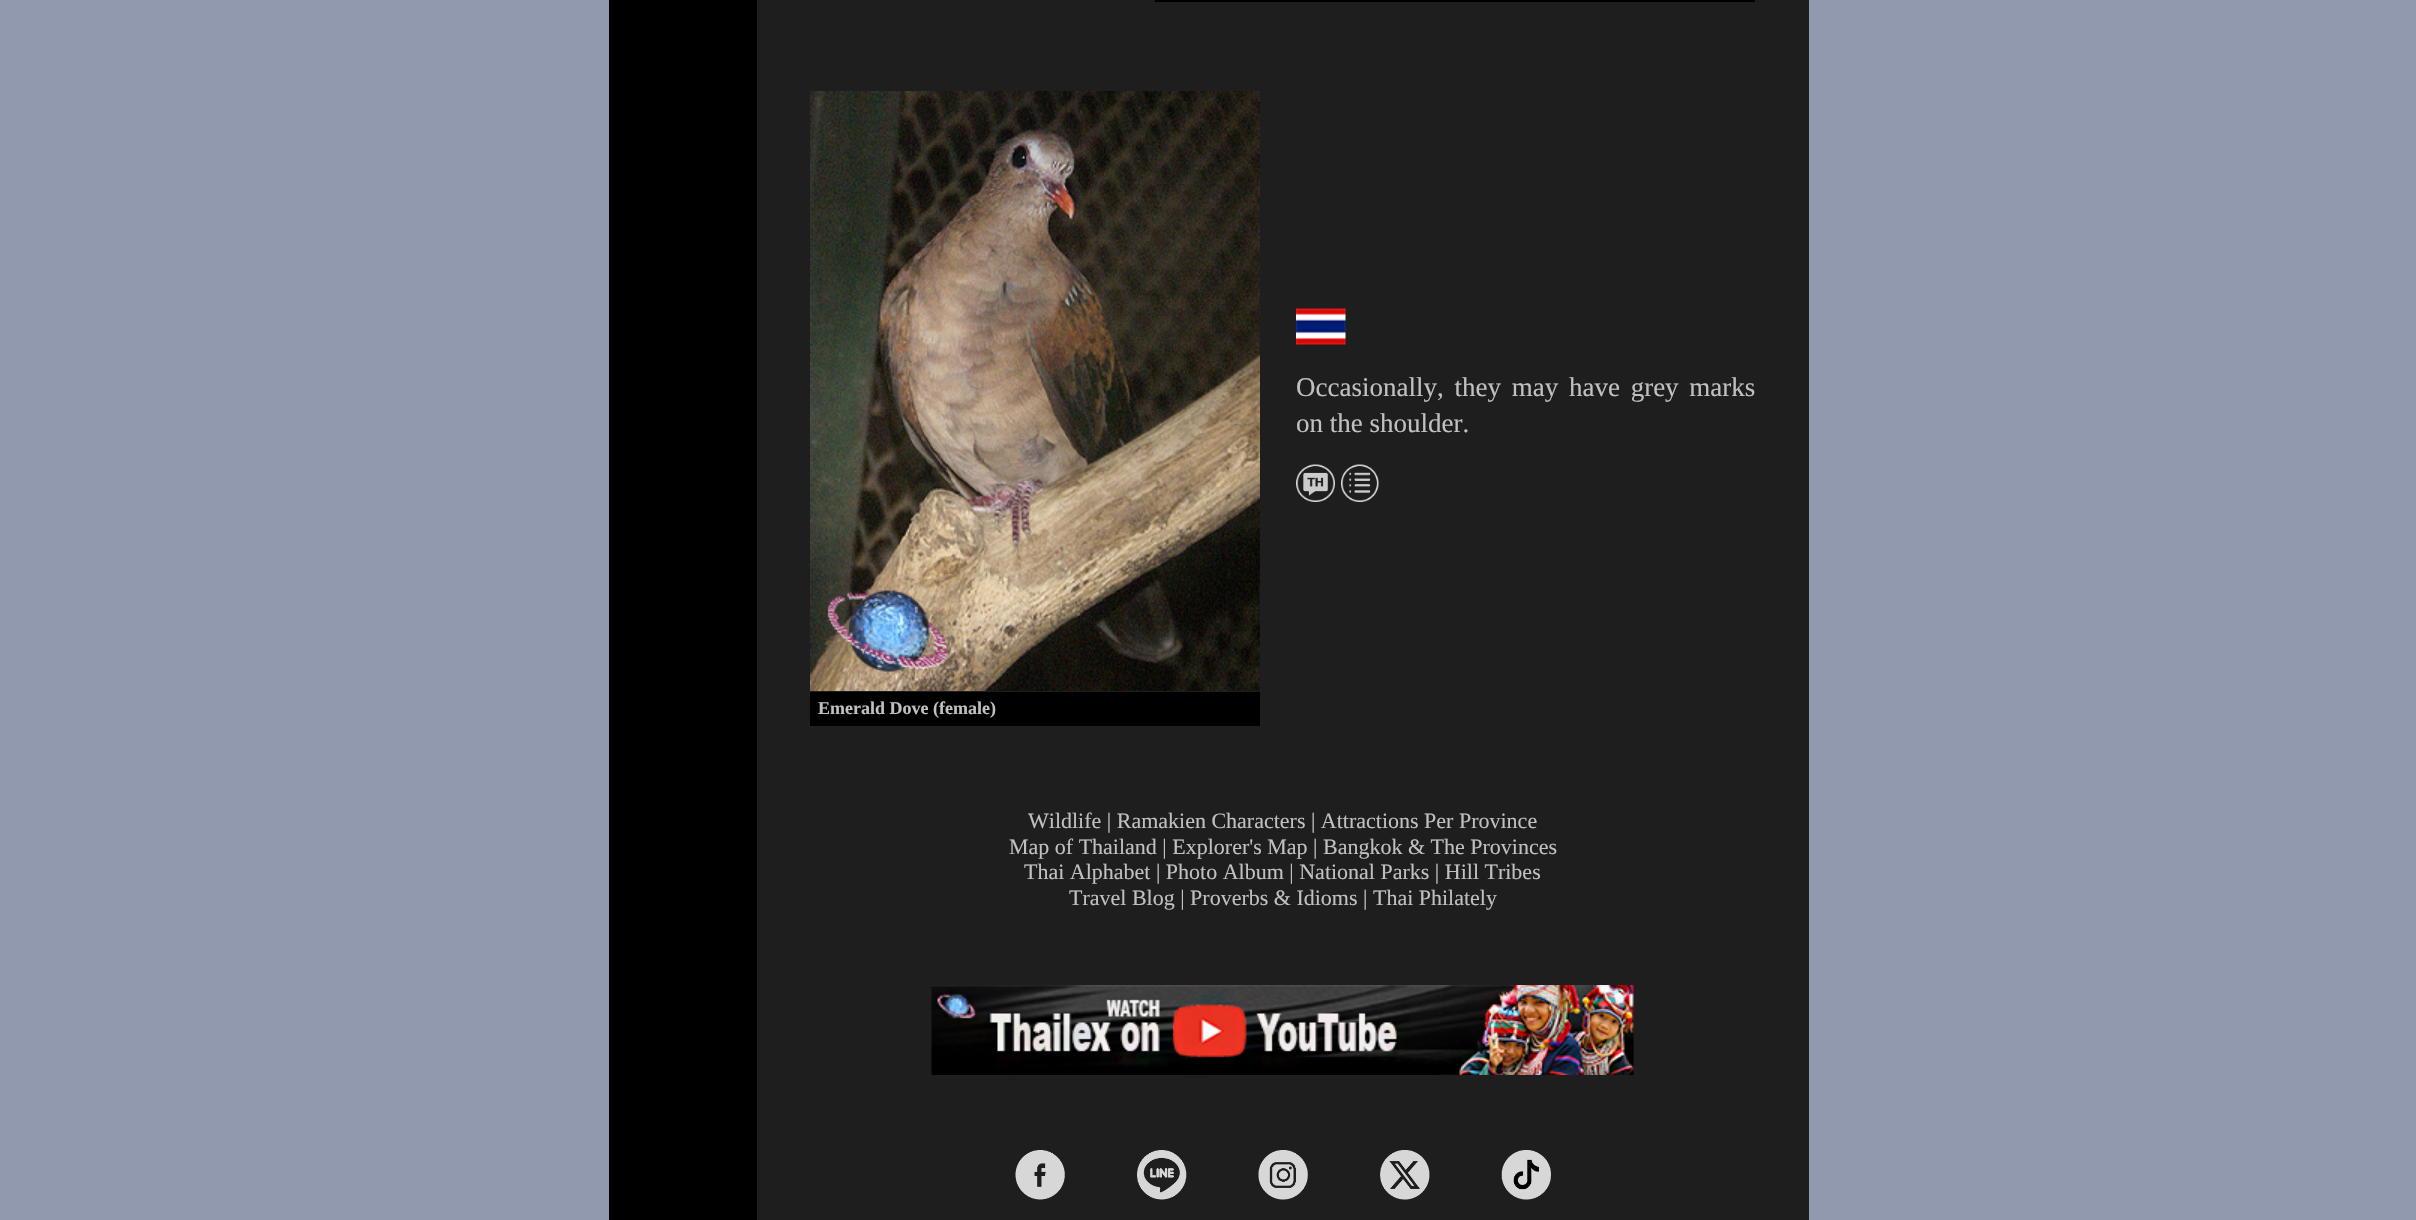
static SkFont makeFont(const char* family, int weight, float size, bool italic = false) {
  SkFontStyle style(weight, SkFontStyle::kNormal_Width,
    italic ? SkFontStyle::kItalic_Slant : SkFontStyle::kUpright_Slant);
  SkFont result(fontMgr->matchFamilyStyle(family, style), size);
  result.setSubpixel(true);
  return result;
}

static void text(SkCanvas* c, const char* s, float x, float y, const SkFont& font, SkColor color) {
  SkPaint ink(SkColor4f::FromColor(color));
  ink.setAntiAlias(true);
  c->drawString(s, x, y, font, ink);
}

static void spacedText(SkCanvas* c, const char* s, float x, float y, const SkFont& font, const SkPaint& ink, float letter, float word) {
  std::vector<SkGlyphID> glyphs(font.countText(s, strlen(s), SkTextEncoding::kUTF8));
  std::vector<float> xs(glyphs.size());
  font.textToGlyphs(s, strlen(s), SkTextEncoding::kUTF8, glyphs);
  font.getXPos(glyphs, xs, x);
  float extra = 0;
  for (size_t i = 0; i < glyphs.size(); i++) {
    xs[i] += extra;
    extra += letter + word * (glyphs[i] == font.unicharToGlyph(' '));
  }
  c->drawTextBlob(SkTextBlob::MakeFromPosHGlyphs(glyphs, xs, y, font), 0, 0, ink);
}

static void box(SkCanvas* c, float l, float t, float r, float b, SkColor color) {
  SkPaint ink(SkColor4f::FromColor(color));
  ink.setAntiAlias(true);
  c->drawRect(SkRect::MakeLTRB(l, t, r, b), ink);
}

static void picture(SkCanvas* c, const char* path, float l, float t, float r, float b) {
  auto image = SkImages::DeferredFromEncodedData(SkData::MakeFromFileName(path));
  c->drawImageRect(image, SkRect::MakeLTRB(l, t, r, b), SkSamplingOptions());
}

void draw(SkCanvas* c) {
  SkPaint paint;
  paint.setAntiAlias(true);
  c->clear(0xff9199ae);
  box(c, 609, 0, 757, 1220, 0xff000000);
  box(c, 757, 0, 1809, 1220, 0xff1e1e1e);
  box(c, 1155, 0, 1755, 2, 0xff000000);
  picture(c, "img_01.png", 1296, 308, 1346, 345);
  SkFont face1 = makeFont("Liberation Serif", 400, 27);
  paint.setColor(0xffc0c0c0);
  spacedText(c, "Occasionally, they may have grey marks", 1296, 396, face1, paint, 0, 4);
  text(c, "on the shoulder.", 1296, 432, face1, 0xffc0c0c0);
  picture(c, "img_02.png", 1296, 464, 1335, 502);
  picture(c, "img_03.png", 1341, 464, 1379, 502);
  picture(c, "img_04.png", 810, 91, 1260, 691);
  box(c, 810, 692, 1260, 726, 0xff000000);
  SkFont face2 = makeFont("Liberation Serif", 700, 18);
  text(c, "Emerald Dove (female)", 818, 714, face2, 0xffc0c0c0);
  SkFont face3 = makeFont("Liberation Serif", 400, 22);
  text(c, "Wildlife | Ramakien Characters | Attractions Per Province", 1028, 828, face3, 0xffc0c0c0);
  text(c, "Map of Thailand | Explorer's Map | Bangkok & The Provinces", 1009, 854, face3, 0xffc0c0c0);
  text(c, "Thai Alphabet | Photo Album | National Parks | Hill Tribes", 1024, 879, face3, 0xffc0c0c0);
  text(c, "Travel Blog | Proverbs & Idioms | Thai Philately", 1069, 905, face3, 0xffc0c0c0);
  picture(c, "img_05.png", 931, 985, 1634, 1075);
  picture(c, "img_06.png", 1015, 1150, 1065, 1200);
  picture(c, "img_07.png", 1137, 1150, 1187, 1200);
  picture(c, "img_08.png", 1258, 1150, 1308, 1200);
  picture(c, "img_09.png", 1380, 1150, 1430, 1200);
  picture(c, "img_10.png", 1501, 1150, 1551, 1200);
}
